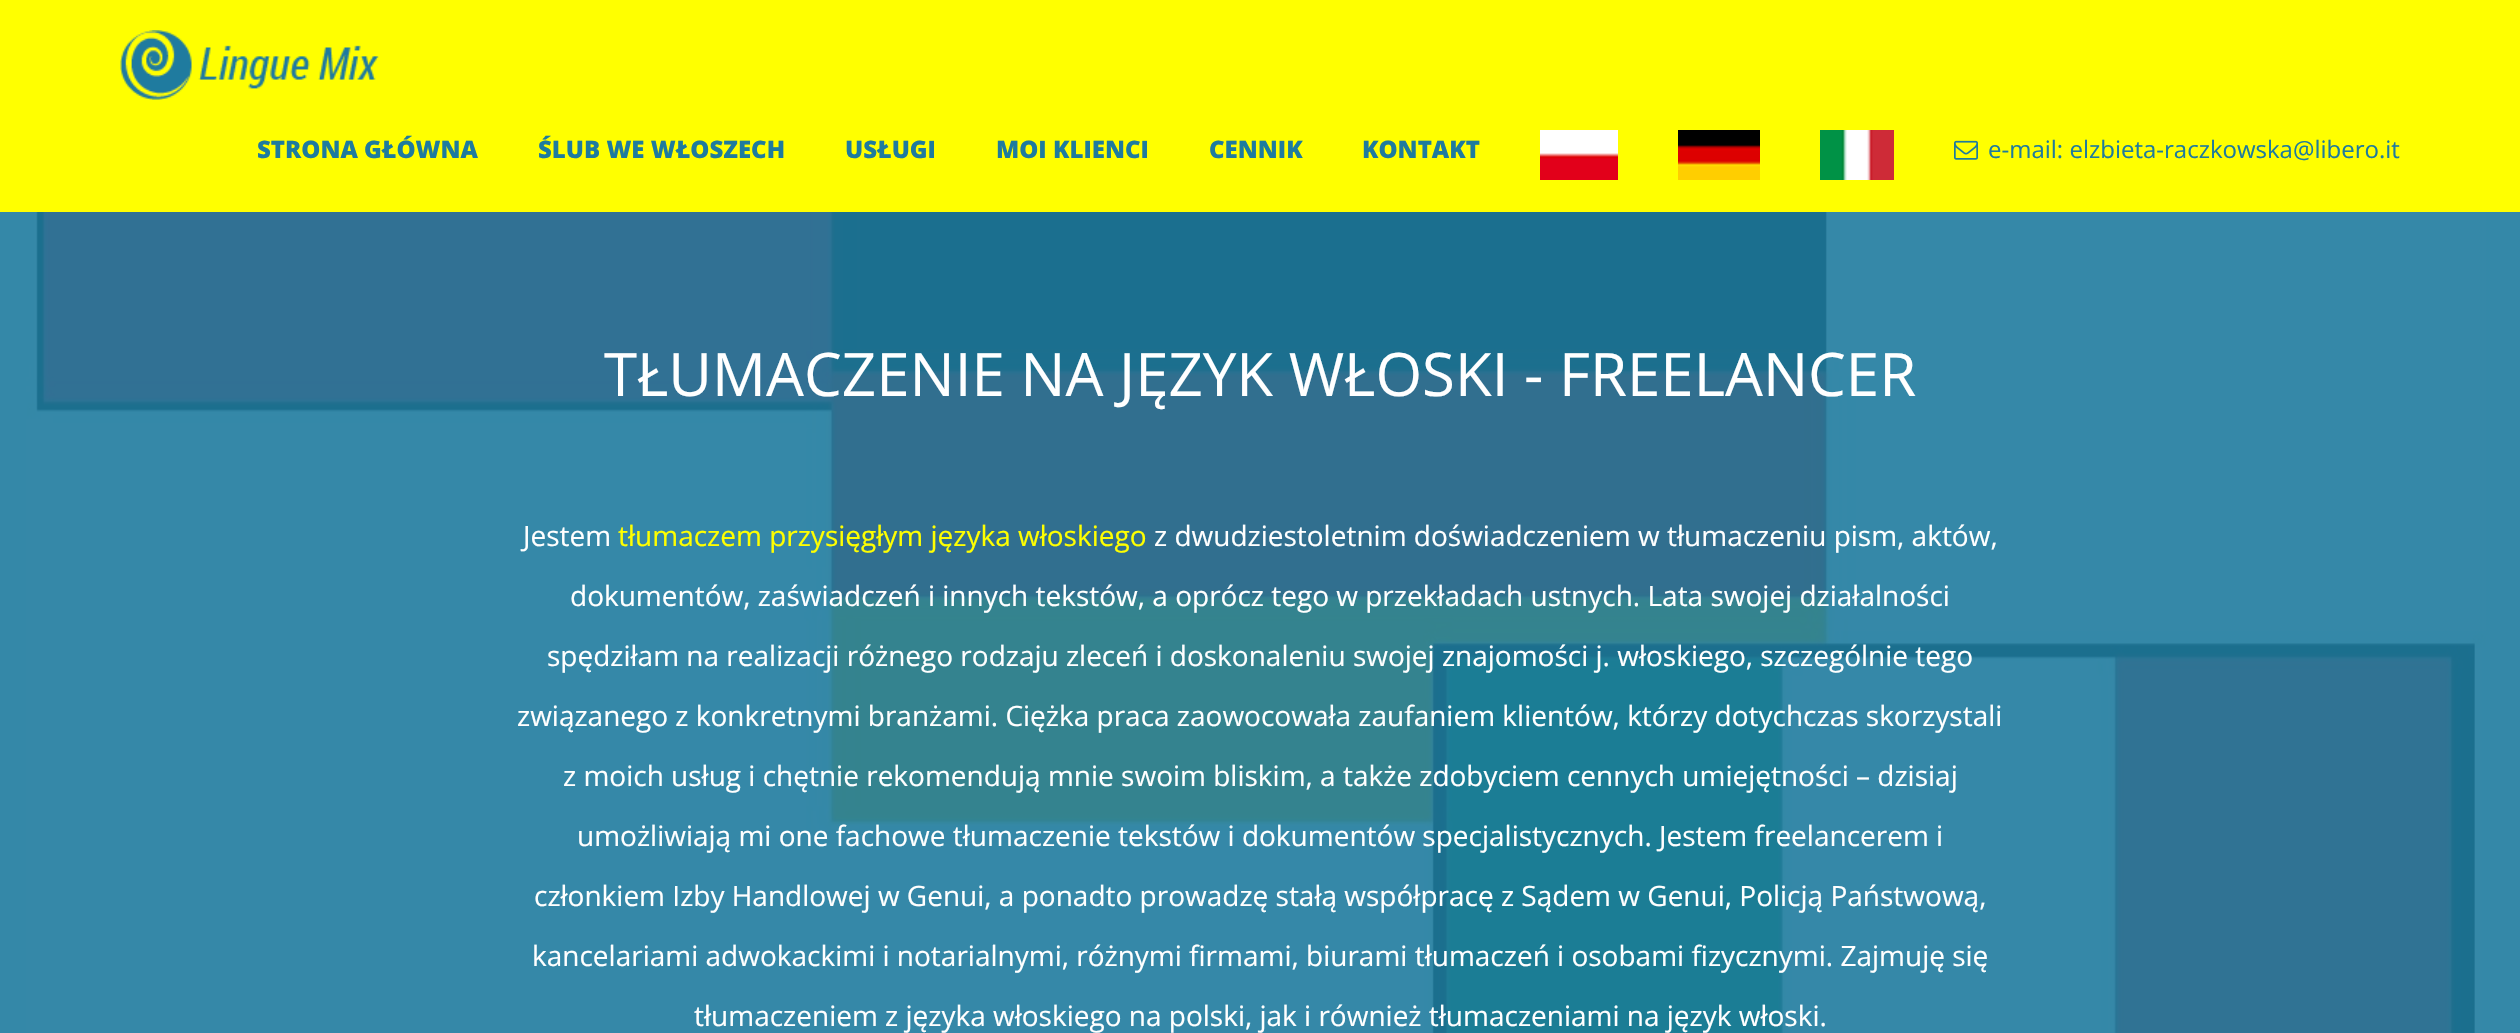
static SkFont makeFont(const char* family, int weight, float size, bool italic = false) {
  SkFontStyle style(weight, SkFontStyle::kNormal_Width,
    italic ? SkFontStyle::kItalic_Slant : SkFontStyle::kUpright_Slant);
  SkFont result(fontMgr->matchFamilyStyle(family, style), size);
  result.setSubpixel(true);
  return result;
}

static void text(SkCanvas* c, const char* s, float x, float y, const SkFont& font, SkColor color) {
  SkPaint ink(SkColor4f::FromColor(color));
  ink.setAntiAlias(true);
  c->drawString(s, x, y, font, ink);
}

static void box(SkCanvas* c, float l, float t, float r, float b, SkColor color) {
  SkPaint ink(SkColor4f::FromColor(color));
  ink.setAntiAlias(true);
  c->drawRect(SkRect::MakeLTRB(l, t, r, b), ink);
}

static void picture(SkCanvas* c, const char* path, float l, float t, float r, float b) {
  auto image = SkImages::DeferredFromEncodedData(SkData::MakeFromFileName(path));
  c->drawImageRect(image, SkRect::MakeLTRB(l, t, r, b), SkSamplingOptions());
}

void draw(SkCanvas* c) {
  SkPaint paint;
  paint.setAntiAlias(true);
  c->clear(0xff3488a8);
  box(c, 0, 0, 2520, 212, 0xffffff00);
  picture(c, "img_01.png", 120, 30, 379, 100);
  SkFont face1 = makeFont("Open Sans", 800, 24);
  text(c, "STRONA GŁÓWNA", 257, 158, face1, 0xff1e7b9e);
  text(c, "ŚLUB WE WŁOSZECH", 538, 158, face1, 0xff1e7b9e);
  text(c, "USŁUGI", 845, 158, face1, 0xff1e7b9e);
  text(c, "MOI KLIENCI", 996, 158, face1, 0xff1e7b9e);
  text(c, "CENNIK", 1209, 158, face1, 0xff1e7b9e);
  text(c, "KONTAKT", 1362, 158, face1, 0xff1e7b9e);
  picture(c, "img_02.png", 1540, 130, 1618, 180);
  picture(c, "img_03.png", 1678, 130, 1760, 180);
  picture(c, "img_04.png", 1820, 130, 1894, 180);
  picture(c, "img_05.png", 1954, 140, 1978, 160);
  SkFont face2 = makeFont("Open Sans", 400, 24);
  text(c, "e-mail: elzbieta-raczkowska@libero.it", 1988, 158, face2, 0xff1e7b9e);
  picture(c, "img_06.png", 26, 212, 2486, 1033);
  SkFont face3 = makeFont("Open Sans", 400, 60);
  text(c, "TŁUMACZENIE NA JĘZYK WŁOSKI - FREELANCER", 604, 396, face3, 0xffffffff);
  SkFont face4 = makeFont("Open Sans", 400, 28);
  text(c, "Jestem", 523, 546, face4, 0xffffffff);
  text(c, "tłumaczem przysięgłym języka włoskiego", 618, 546, face4, 0xffffff00);
  text(c, "z dwudziestoletnim doświadczeniem w tłumaczeniu pism, aktów,", 1154, 546, face4, 0xffffffff);
  text(c, "dokumentów, zaświadczeń i innych tekstów, a oprócz tego w przekładach ustnych. Lata swojej działalności", 570, 606, face4, 0xffffffff);
  text(c, "spędziłam na realizacji różnego rodzaju zleceń i doskonaleniu swojej znajomości j. włoskiego, szczególnie tego", 547, 666, face4, 0xffffffff);
  text(c, "związanego z konkretnymi branżami. Ciężka praca zaowocowała zaufaniem klientów, którzy dotychczas skorzystali", 517, 726, face4, 0xffffffff);
  text(c, "z moich usług i chętnie rekomendują mnie swoim bliskim, a także zdobyciem cennych umiejętności – dzisiaj", 563, 786, face4, 0xffffffff);
  text(c, "umożliwiają mi one fachowe tłumaczenie tekstów i dokumentów specjalistycznych. Jestem freelancerem i", 577, 846, face4, 0xffffffff);
  text(c, "członkiem Izby Handlowej w Genui, a ponadto prowadzę stałą współpracę z Sądem w Genui, Policją Państwową,", 534, 906, face4, 0xffffffff);
  text(c, "kancelariami adwokackimi i notarialnymi, różnymi firmami, biurami tłumaczeń i osobami fizycznymi. Zajmuję się", 532, 966, face4, 0xffffffff);
  text(c, "tłumaczeniem z języka włoskiego na polski, jak i również tłumaczeniami na język włoski.", 694, 1026, face4, 0xffffffff);
}
